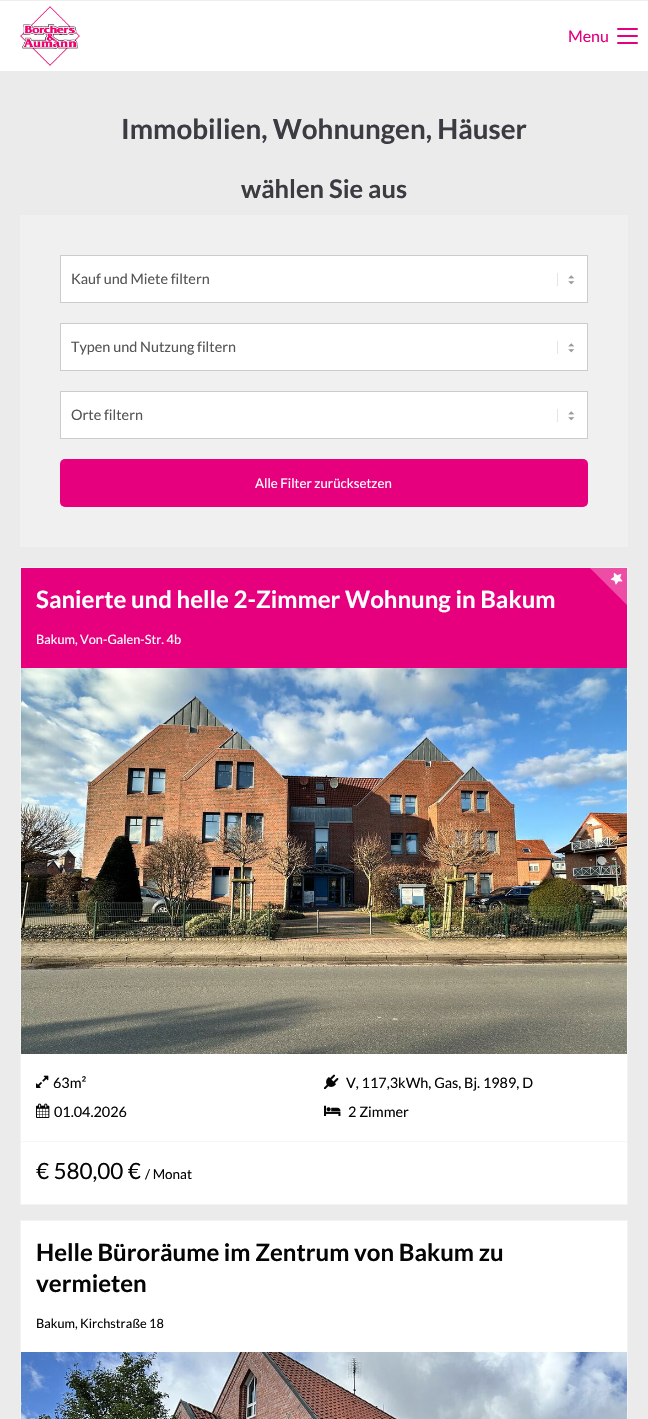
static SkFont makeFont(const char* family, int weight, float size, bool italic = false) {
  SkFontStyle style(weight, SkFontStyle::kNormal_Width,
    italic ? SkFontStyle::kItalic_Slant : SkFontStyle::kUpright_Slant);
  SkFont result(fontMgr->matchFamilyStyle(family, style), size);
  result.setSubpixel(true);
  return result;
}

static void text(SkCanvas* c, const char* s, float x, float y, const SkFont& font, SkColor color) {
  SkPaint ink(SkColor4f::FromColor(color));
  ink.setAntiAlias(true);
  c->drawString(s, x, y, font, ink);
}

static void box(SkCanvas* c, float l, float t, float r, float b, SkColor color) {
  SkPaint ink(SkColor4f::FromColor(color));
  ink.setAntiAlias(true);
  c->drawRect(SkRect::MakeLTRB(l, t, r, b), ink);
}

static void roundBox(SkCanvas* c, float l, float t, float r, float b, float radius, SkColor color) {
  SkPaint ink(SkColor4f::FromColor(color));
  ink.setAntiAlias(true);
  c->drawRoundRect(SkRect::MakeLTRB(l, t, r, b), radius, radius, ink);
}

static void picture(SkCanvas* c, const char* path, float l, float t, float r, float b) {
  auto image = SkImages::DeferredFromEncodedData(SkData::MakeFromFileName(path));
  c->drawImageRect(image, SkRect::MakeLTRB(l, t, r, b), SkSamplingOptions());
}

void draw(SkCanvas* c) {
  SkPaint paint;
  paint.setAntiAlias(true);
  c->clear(0xffffffff);
  box(c, 0, 0, 648, 1, 0xffeeeeee);
  picture(c, "img_01.png", 20, 6, 80, 66);
  SkFont face1 = makeFont("Lato", 400, 16);
  text(c, "Menu", 568, 42, face1, 0xffe6007e);
  roundBox(c, 617, 35, 638, 37, 1, 0xffe6007e);
  roundBox(c, 617, 28, 638, 30, 1, 0xffe6007e);
  roundBox(c, 617, 42, 638, 44, 1, 0xffe6007e);
  box(c, 0, 71, 648, 1419, 0xffebebeb);
  SkFont face2 = makeFont("Lato", 700, 27.75f);
  text(c, "Immobilien, Wohnungen, Häuser", 121, 139, face2, 0xff3b3c42);
  SkFont face3 = makeFont("Lato", 700, 25.5f);
  text(c, "wählen Sie aus", 241, 198, face3, 0xff3b3c42);
  box(c, 20, 215, 628, 547, 0xfff0f0f0);
  box(c, 61, 256, 587, 302, 0xffffffff);
  picture(c, "img_02.png", 557, 273, 575, 286);
  paint.setStyle(SkPaint::kStroke_Style);
  paint.setStrokeWidth(1);
  paint.setColor(0xffcccccc);
  c->drawRect(SkRect::MakeLTRB(60.5f, 255.5f, 587.5f, 302.5f), paint);
  SkFont face4 = makeFont("Lato", 400, 14.4f);
  text(c, "Kauf und Miete filtern", 71, 284, face4, 0xff555555);
  box(c, 61, 324, 587, 370, 0xffffffff);
  picture(c, "img_02.png", 557, 341, 575, 354);
  c->drawRect(SkRect::MakeLTRB(60.5f, 323.5f, 587.5f, 370.5f), paint);
  text(c, "Typen und Nutzung filtern", 71, 352, face4, 0xff555555);
  box(c, 61, 392, 587, 438, 0xffffffff);
  picture(c, "img_02.png", 557, 409, 575, 422);
  c->drawRect(SkRect::MakeLTRB(60.5f, 391.5f, 587.5f, 438.5f), paint);
  text(c, "Orte filtern", 71, 420, face4, 0xff555555);
  roundBox(c, 60, 459, 588, 507, 5, 0xffe6007e);
  SkFont face5 = makeFont("Lato", 400, 13.25f);
  text(c, "Alle Filter zurücksetzen", 255, 488, face5, 0xffffffff);
  box(c, 21, 1054, 627, 1204, 0xffffffff);
  paint.setColor(0xfff3f3f3);
  c->drawRect(SkRect::MakeLTRB(20.5f, 567.5f, 627.5f, 1204.5f), paint);
  box(c, 21, 568, 627, 668, 0xffe6007e);
  SkFont face6 = makeFont("Lato", 700, 24);
  text(c, "Sanierte und helle 2-Zimmer Wohnung in Bakum", 36, 608, face6, 0xffffffff);
  c->save();
  c->clipRect(SkRect::MakeLTRB(21, 568, 627, 1204));
  paint.setStyle(SkPaint::kFill_Style);
  paint.setColor(0xffee4da5);
  c->drawPath(SkPathBuilder().moveTo(606, 547).lineTo(648, 590).lineTo(630, 608).lineTo(587, 565).close().detach(), paint);
  c->restore();
  picture(c, "img_03.png", 610, 572, 623, 585);
  SkFont face7 = makeFont("Lato", 400, 12.75f);
  text(c, "Bakum, Von-Galen-Str. 4b", 36, 644, face7, 0xffffffff);
  picture(c, "img_04.png", 21, 668, 627, 1054);
  picture(c, "img_05.png", 36, 1075, 49, 1088);
  text(c, "63m²", 53, 1088, face4, 0xff050505);
  picture(c, "img_06.png", 324, 1074, 339, 1089);
  text(c, "V, 117,3kWh, Gas, Bj. 1989, D", 346, 1088, face4, 0xff050505);
  picture(c, "img_07.png", 36, 1103, 50, 1118);
  text(c, "01.04.2026", 54, 1117, face4, 0xff050505);
  picture(c, "img_08.png", 324, 1105, 341, 1116);
  text(c, "2 Zimmer", 348, 1117, face4, 0xff050505);
  box(c, 21, 1141, 627, 1142, 0xfff6f6f6);
  SkFont face8 = makeFont("Lato", 400, 22.5f);
  text(c, "€ 580,00 €", 36, 1179, face8, 0xff050505);
  SkFont face9 = makeFont("Lato", 400, 13.5f);
  text(c, "/ Monat", 145, 1179, face9, 0xff050505);
  box(c, 21, 1221, 627, 1352, 0xffffffff);
  paint.setStyle(SkPaint::kStroke_Style);
  paint.setColor(0xfff3f3f3);
  c->drawRect(SkRect::MakeLTRB(20.5f, 1220.5f, 627.5f, 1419.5f), paint);
  text(c, "Helle Büroräume im Zentrum von Bakum zu", 36, 1261, face6, 0xff050505);
  text(c, "vermieten", 36, 1292, face6, 0xff050505);
  text(c, "Bakum, Kirchstraße 18", 36, 1328, face7, 0xff050505);
  picture(c, "img_09.png", 21, 1352, 627, 1419);
}
